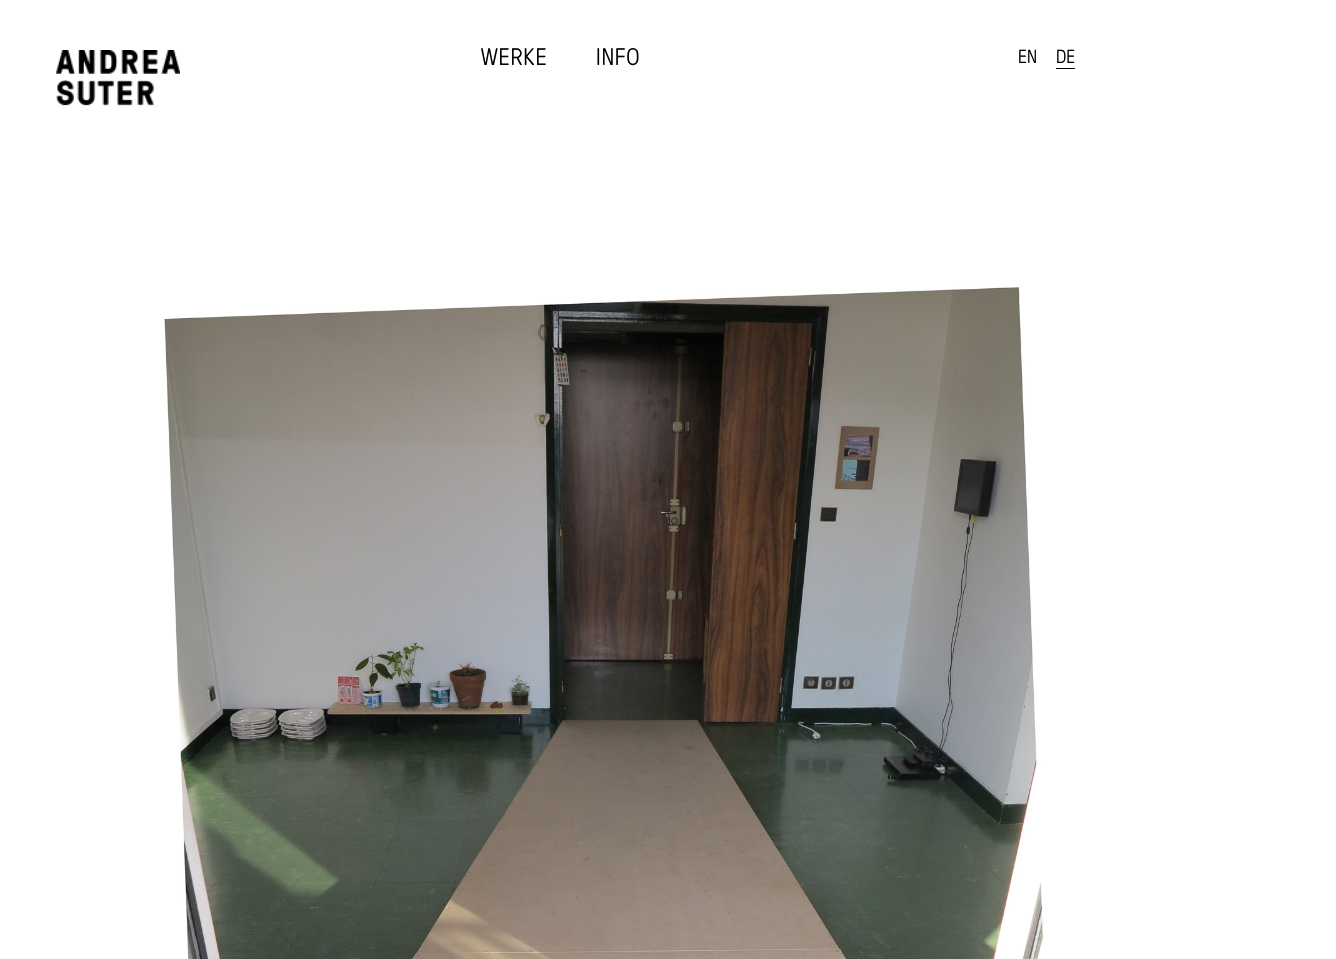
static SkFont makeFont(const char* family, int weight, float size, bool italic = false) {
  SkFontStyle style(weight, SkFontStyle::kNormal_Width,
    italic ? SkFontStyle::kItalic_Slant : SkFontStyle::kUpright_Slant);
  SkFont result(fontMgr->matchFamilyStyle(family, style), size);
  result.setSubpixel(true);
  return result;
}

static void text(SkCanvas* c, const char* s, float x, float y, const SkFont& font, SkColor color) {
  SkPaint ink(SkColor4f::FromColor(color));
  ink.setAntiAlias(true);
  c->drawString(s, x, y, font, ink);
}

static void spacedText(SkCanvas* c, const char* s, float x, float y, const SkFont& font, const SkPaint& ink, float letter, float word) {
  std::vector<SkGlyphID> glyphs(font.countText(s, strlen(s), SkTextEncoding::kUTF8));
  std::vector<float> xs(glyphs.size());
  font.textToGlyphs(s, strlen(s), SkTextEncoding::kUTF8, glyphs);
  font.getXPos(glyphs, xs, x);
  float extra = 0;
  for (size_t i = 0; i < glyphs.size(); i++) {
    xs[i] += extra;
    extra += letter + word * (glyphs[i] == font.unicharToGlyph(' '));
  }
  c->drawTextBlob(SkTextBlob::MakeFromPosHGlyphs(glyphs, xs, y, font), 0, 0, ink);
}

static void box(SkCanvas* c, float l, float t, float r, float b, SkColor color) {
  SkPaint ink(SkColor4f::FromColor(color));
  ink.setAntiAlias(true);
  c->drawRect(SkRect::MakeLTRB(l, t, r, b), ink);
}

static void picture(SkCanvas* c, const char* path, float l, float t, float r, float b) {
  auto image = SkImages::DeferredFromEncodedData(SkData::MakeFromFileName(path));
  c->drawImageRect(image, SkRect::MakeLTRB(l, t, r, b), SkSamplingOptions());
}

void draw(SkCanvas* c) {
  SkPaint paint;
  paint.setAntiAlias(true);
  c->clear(0xffffffff);
  picture(c, "img_01.png", 56, 50, 180, 106);
  SkFont face1 = makeFont("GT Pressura", 300, 24);
  paint.setColor(0xff000000);
  spacedText(c, "WERKE", 481, 65, face1, paint, 0.75f, 0);
  spacedText(c, "INFO", 596, 65, face1, paint, 0.75f, 0);
  SkFont face2 = makeFont("GT Pressura", 300, 19);
  text(c, "EN", 1018, 63, face2, 0xff000000);
  text(c, "DE", 1056, 63, face2, 0xff000000);
  box(c, 1056, 68, 1075, 69, 0xff000000);
  picture(c, "img_02.png", 164, 287, 1043, 959);
}
